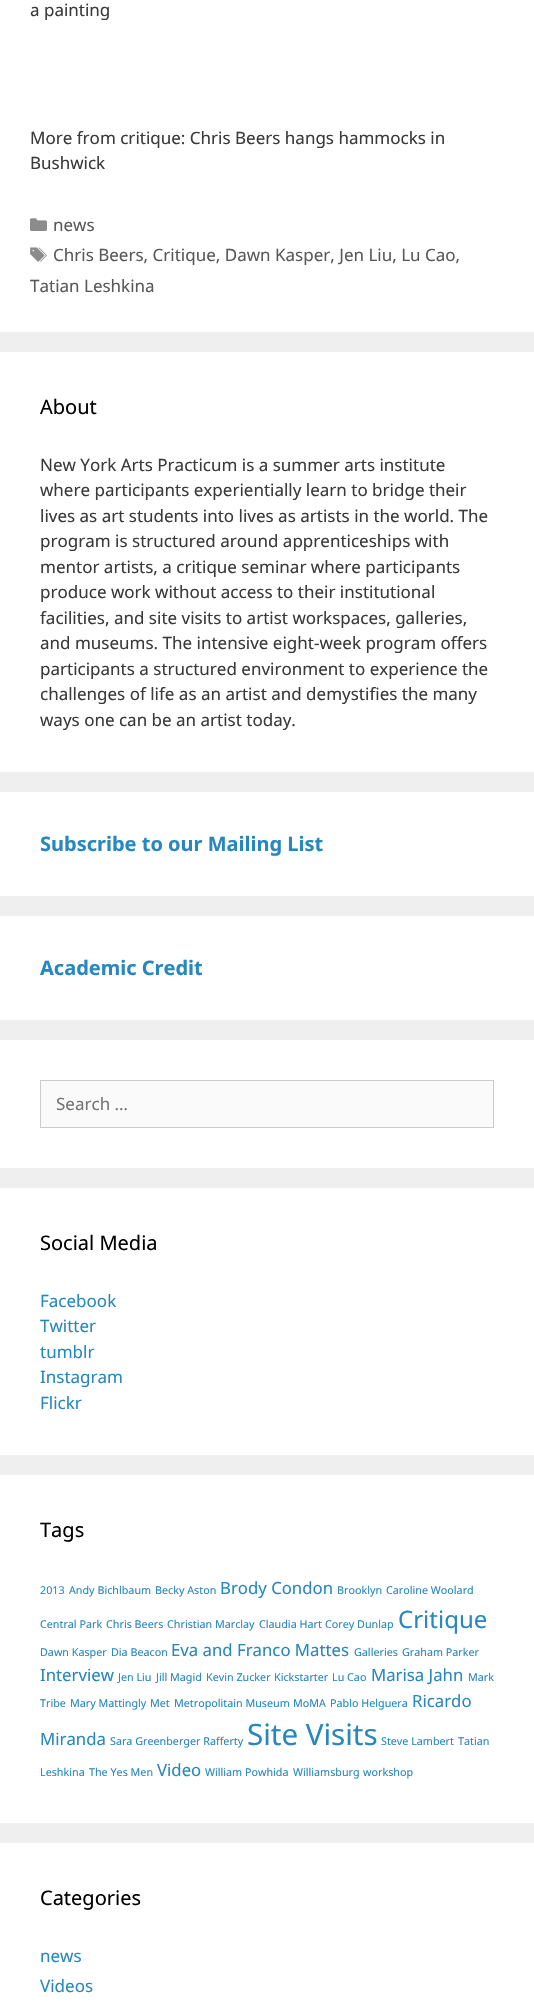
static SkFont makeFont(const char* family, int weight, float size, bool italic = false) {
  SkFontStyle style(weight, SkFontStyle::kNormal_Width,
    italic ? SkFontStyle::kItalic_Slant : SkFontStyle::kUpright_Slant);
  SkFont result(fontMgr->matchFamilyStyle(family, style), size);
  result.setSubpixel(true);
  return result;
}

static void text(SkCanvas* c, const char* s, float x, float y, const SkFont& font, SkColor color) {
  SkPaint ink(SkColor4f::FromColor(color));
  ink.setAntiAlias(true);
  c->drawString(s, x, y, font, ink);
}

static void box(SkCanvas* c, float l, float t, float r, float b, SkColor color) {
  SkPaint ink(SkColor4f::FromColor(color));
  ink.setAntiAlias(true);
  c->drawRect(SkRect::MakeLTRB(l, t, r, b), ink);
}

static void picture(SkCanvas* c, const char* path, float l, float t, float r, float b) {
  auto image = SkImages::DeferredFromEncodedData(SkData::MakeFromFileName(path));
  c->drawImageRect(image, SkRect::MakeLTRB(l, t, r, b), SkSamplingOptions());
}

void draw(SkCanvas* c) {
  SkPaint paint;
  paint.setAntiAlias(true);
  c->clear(0xffefefef);
  box(c, 0, 0, 534, 332, 0xffffffff);
  SkFont face1 = makeFont("Noto Sans", 400, 17);
  text(c, "a painting", 30, 16, face1, 0xff3a3a3a);
  text(c, "More from critique: Chris Beers hangs hammocks in", 30, 144, face1, 0xff3a3a3a);
  text(c, "Bushwick", 30, 169, face1, 0xff3a3a3a);
  picture(c, "img_01.png", 30, 218, 47, 231);
  text(c, "news", 53, 231, face1, 0xff595959);
  picture(c, "img_02.png", 30, 247, 47, 262);
  text(c, "Chris Beers, Critique, Dawn Kasper, Jen Liu, Lu Cao,", 53, 261, face1, 0xff595959);
  text(c, "Tatian Leshkina", 30, 292, face1, 0xff595959);
  box(c, 0, 352, 534, 772, 0xffffffff);
  SkFont face2 = makeFont("Noto Sans", 400, 20);
  text(c, "About", 40, 414, face2, 0xff000000);
  text(c, "New York Arts Practicum is a summer arts institute", 40, 471, face1, 0xff3a3a3a);
  text(c, "where participants experientially learn to bridge their", 40, 496, face1, 0xff3a3a3a);
  text(c, "lives as art students into lives as artists in the world. The", 40, 522, face1, 0xff3a3a3a);
  text(c, "program is structured around apprenticeships with", 40, 547, face1, 0xff3a3a3a);
  text(c, "mentor artists, a critique seminar where participants", 40, 573, face1, 0xff3a3a3a);
  text(c, "produce work without access to their institutional", 40, 598, face1, 0xff3a3a3a);
  text(c, "facilities, and site visits to artist workspaces, galleries,", 40, 624, face1, 0xff3a3a3a);
  text(c, "and museums. The intensive eight-week program offers", 40, 649, face1, 0xff3a3a3a);
  text(c, "participants a structured environment to experience the", 40, 675, face1, 0xff3a3a3a);
  text(c, "challenges of life as an artist and demystifies the many", 40, 700, face1, 0xff3a3a3a);
  text(c, "ways one can be an artist today.", 40, 726, face1, 0xff3a3a3a);
  box(c, 0, 792, 534, 896, 0xffffffff);
  SkFont face3 = makeFont("Noto Sans", 700, 20);
  text(c, "Subscribe to our Mailing List", 40, 851, face3, 0xff2787be);
  box(c, 0, 916, 534, 1020, 0xffffffff);
  text(c, "Academic Credit", 40, 975, face3, 0xff2787be);
  box(c, 0, 1040, 534, 1168, 0xffffffff);
  paint.setColor(0xfffafafa);
  c->drawRect(SkRect::MakeLTRB(40.5f, 1080.5f, 493.5f, 1127.5f), paint);
  paint.setStyle(SkPaint::kStroke_Style);
  paint.setStrokeWidth(1);
  paint.setColor(0xffcccccc);
  c->drawRect(SkRect::MakeLTRB(40.5f, 1080.5f, 493.5f, 1127.5f), paint);
  text(c, "Search …", 56, 1110, face1, 0xff757575);
  box(c, 0, 1188, 534, 1455, 0xffffffff);
  text(c, "Social Media", 40, 1250, face2, 0xff000000);
  text(c, "Facebook", 40, 1307, face1, 0xff2787be);
  text(c, "Twitter", 40, 1332, face1, 0xff2787be);
  text(c, "tumblr", 40, 1358, face1, 0xff2787be);
  text(c, "Instagram", 40, 1383, face1, 0xff2787be);
  text(c, "Flickr", 40, 1409, face1, 0xff2787be);
  box(c, 0, 1475, 534, 1823, 0xffffffff);
  text(c, "Tags", 40, 1537, face2, 0xff000000);
  SkFont face4 = makeFont("Noto Sans", 400, 10.75f);
  text(c, "2013", 40, 1594, face4, 0xff2787be);
  text(c, "Andy Bichlbaum", 69, 1594, face4, 0xff2787be);
  text(c, "Becky Aston", 155, 1594, face4, 0xff2787be);
  SkFont face5 = makeFont("Noto Sans", 400, 16.75f);
  text(c, "Brody Condon", 220, 1594, face5, 0xff2787be);
  text(c, "Brooklyn", 337, 1594, face4, 0xff2787be);
  text(c, "Caroline Woolard", 386, 1594, face4, 0xff2787be);
  text(c, "Central Park", 40, 1628, face4, 0xff2787be);
  text(c, "Chris Beers", 106, 1628, face4, 0xff2787be);
  text(c, "Christian Marclay", 167, 1628, face4, 0xff2787be);
  text(c, "Claudia Hart", 259, 1628, face4, 0xff2787be);
  text(c, "Corey Dunlap", 325, 1628, face4, 0xff2787be);
  SkFont face6 = makeFont("Noto Sans", 400, 24);
  text(c, "Critique", 398, 1628, face6, 0xff2787be);
  text(c, "Dawn Kasper", 40, 1656, face4, 0xff2787be);
  text(c, "Dia Beacon", 111, 1656, face4, 0xff2787be);
  text(c, "Eva and Franco Mattes", 171, 1656, face5, 0xff2787be);
  text(c, "Galleries", 354, 1656, face4, 0xff2787be);
  text(c, "Graham Parker", 402, 1656, face4, 0xff2787be);
  text(c, "Interview", 40, 1681, face5, 0xff2787be);
  text(c, "Jen Liu", 118, 1681, face4, 0xff2787be);
  text(c, "Jill Magid", 156, 1681, face4, 0xff2787be);
  text(c, "Kevin Zucker", 206, 1681, face4, 0xff2787be);
  text(c, "Kickstarter", 274, 1681, face4, 0xff2787be);
  text(c, "Lu Cao", 332, 1681, face4, 0xff2787be);
  text(c, "Marisa Jahn", 371, 1681, face5, 0xff2787be);
  text(c, "Mark", 468, 1681, face4, 0xff2787be);
  text(c, "Tribe", 40, 1707, face4, 0xff2787be);
  text(c, "Mary Mattingly", 70, 1707, face4, 0xff2787be);
  text(c, "Met", 150, 1707, face4, 0xff2787be);
  text(c, "Metropolitain Museum", 174, 1707, face4, 0xff2787be);
  text(c, "MoMA", 293, 1707, face4, 0xff2787be);
  text(c, "Pablo Helguera", 330, 1707, face4, 0xff2787be);
  text(c, "Ricardo", 412, 1707, face5, 0xff2787be);
  text(c, "Miranda", 40, 1745, face5, 0xff2787be);
  text(c, "Sara Greenberger Rafferty", 110, 1745, face4, 0xff2787be);
  SkFont face7 = makeFont("Noto Sans", 400, 29.5f);
  text(c, "Site Visits", 247, 1745, face7, 0xff2787be);
  text(c, "Steve Lambert", 381, 1745, face4, 0xff2787be);
  text(c, "Tatian", 458, 1745, face4, 0xff2787be);
  text(c, "Leshkina", 40, 1776, face4, 0xff2787be);
  text(c, "The Yes Men", 89, 1776, face4, 0xff2787be);
  text(c, "Video", 157, 1776, face5, 0xff2787be);
  text(c, "William Powhida", 205, 1776, face4, 0xff2787be);
  text(c, "Williamsburg", 293, 1776, face4, 0xff2787be);
  text(c, "workshop", 363, 1776, face4, 0xff2787be);
  box(c, 0, 1843, 534, 2010, 0xffffffff);
  text(c, "Categories", 40, 1905, face2, 0xff000000);
  text(c, "news", 40, 1962, face1, 0xff2787be);
  text(c, "Videos", 40, 1992, face1, 0xff2787be);
}
